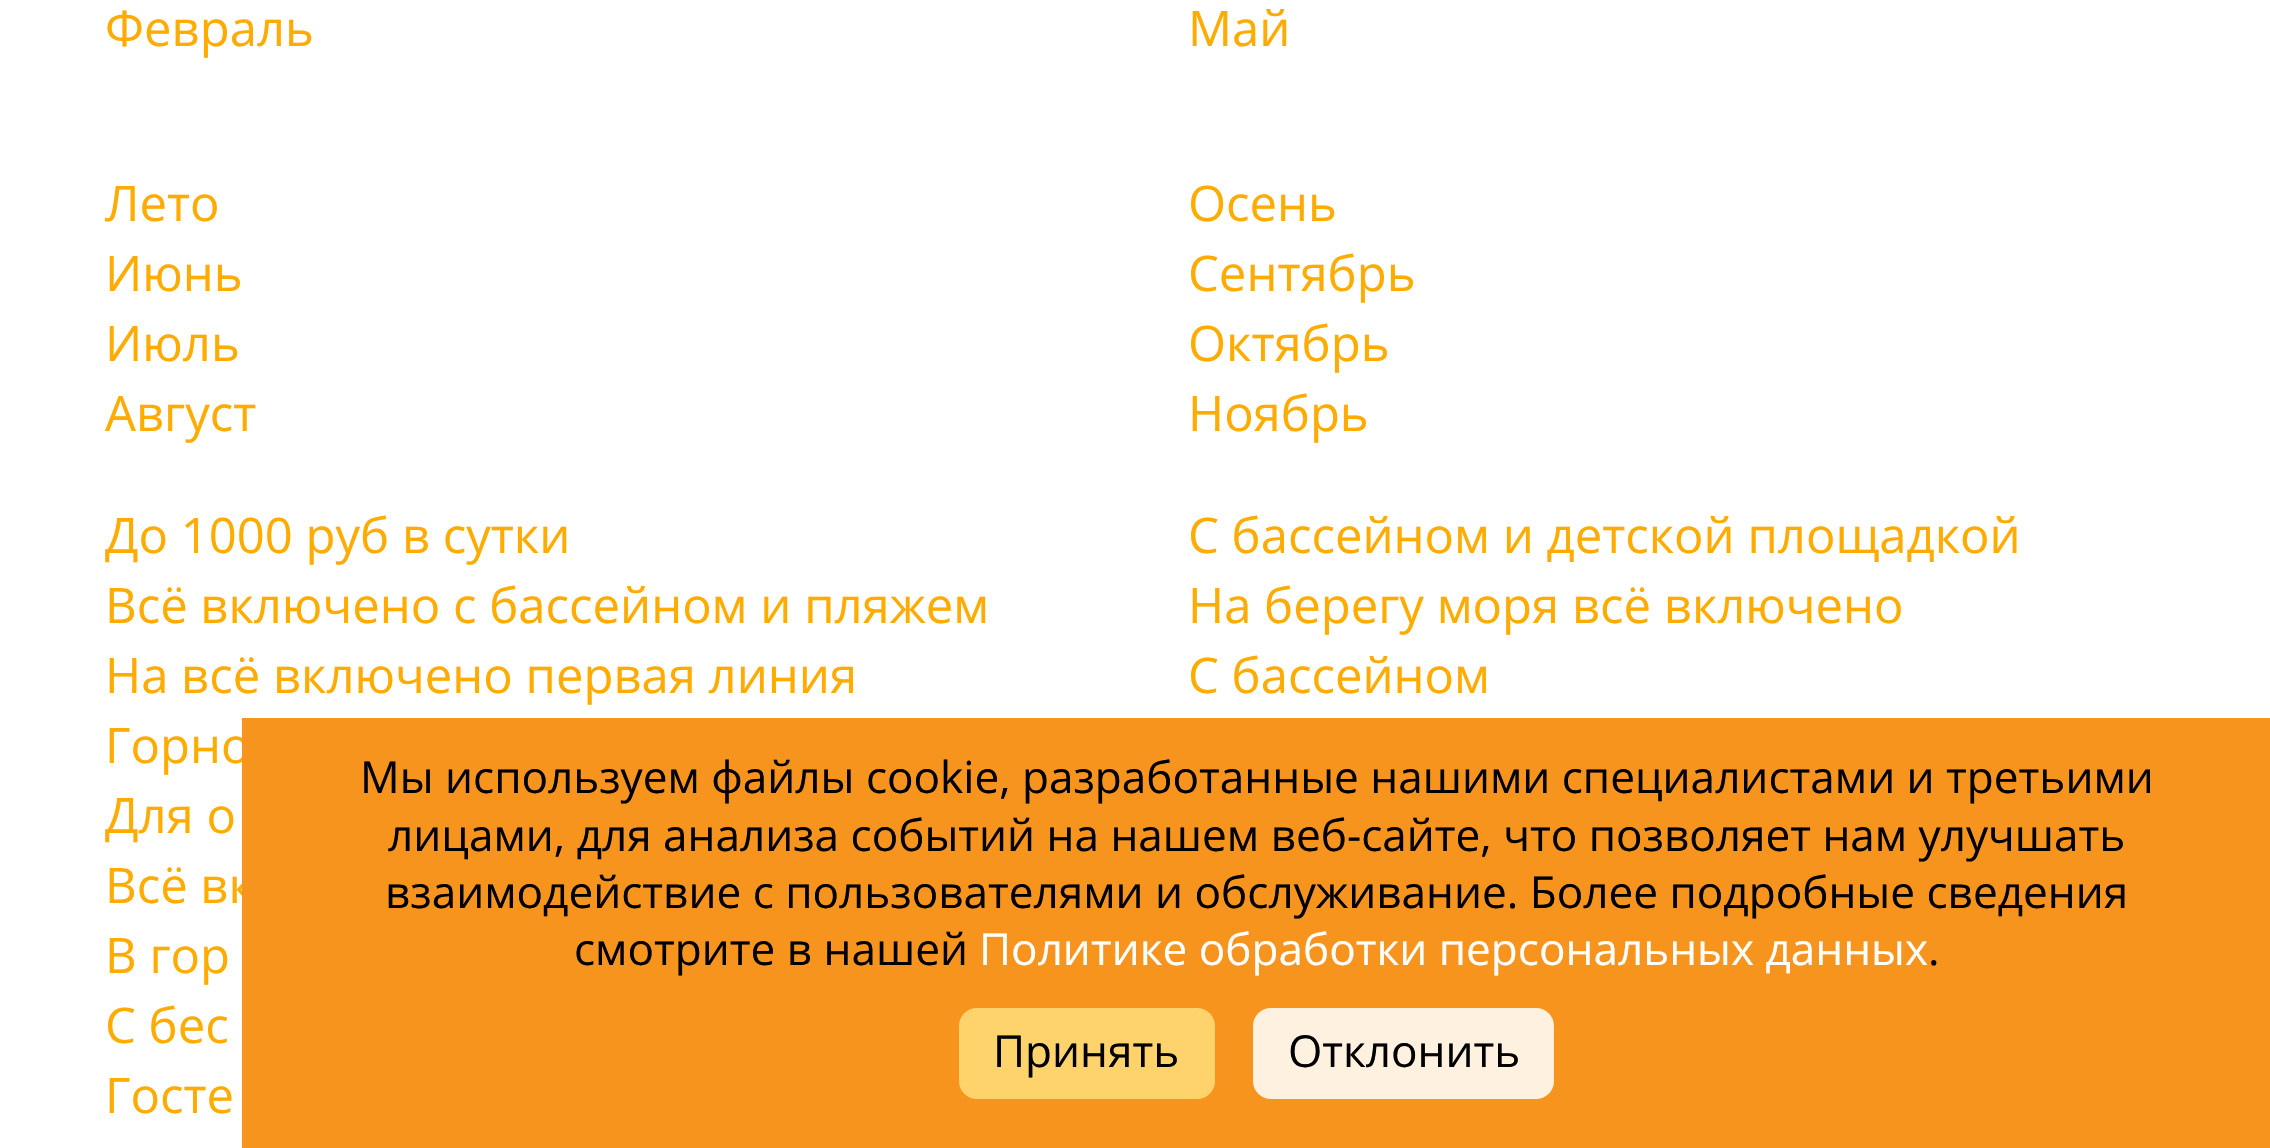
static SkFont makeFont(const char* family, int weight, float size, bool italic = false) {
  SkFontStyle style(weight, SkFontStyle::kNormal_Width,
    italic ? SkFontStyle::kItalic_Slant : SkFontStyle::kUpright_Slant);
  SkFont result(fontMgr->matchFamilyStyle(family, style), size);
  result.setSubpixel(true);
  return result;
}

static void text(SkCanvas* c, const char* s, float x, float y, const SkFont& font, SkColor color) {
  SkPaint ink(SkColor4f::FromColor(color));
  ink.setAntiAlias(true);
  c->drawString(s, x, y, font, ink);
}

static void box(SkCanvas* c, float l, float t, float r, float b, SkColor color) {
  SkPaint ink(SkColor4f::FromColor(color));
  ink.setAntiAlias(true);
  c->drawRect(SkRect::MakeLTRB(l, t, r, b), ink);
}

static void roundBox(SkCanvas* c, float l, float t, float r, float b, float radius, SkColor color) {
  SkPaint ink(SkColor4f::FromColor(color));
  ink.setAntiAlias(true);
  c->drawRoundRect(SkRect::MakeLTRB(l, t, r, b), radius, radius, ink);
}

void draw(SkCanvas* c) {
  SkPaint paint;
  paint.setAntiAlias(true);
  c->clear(0xffffffff);
  SkFont face1 = makeFont("Open Sans", 400, 49);
  text(c, "Февраль", 105, 46, face1, 0xffffab00);
  text(c, "Май", 1188, 46, face1, 0xffffab00);
  text(c, "Лето", 105, 221, face1, 0xffffab00);
  text(c, "Июнь", 105, 291, face1, 0xffffab00);
  text(c, "Июль", 105, 361, face1, 0xffffab00);
  text(c, "Август", 105, 431, face1, 0xffffab00);
  text(c, "Осень", 1188, 221, face1, 0xffffab00);
  text(c, "Сентябрь", 1188, 291, face1, 0xffffab00);
  text(c, "Октябрь", 1188, 361, face1, 0xffffab00);
  text(c, "Ноябрь", 1188, 431, face1, 0xffffab00);
  text(c, "До 1000 руб в сутки", 105, 553, face1, 0xffffab00);
  text(c, "С бассейном и детской площадкой", 1188, 553, face1, 0xffffab00);
  text(c, "Всё включено с бассейном и пляжем", 105, 623, face1, 0xffffab00);
  text(c, "На берегу моря всё включено", 1188, 623, face1, 0xffffab00);
  text(c, "На всё включено первая линия", 105, 693, face1, 0xffffab00);
  text(c, "С бассейном", 1188, 693, face1, 0xffffab00);
  text(c, "Горно", 105, 763, face1, 0xffffab00);
  text(c, "Для о", 105, 833, face1, 0xffffab00);
  text(c, "Всё вк", 105, 903, face1, 0xffffab00);
  text(c, "В гор", 105, 973, face1, 0xffffab00);
  text(c, "С бес", 105, 1043, face1, 0xffffab00);
  text(c, "Госте", 105, 1113, face1, 0xffffab00);
  box(c, 242, 718, 2270, 1148, 0xfff7941d);
  SkFont face2 = makeFont("Open Sans", 400, 44.1f);
  text(c, "Мы используем файлы cookie, разработанные нашими специалистами и третьими", 360, 793, face2, 0xff000000);
  text(c, "лицами, для анализа событий на нашем веб-сайте, что позволяет нам улучшать", 388, 851, face2, 0xff000000);
  text(c, "взаимодействие с пользователями и обслуживание. Более подробные сведения", 385, 908, face2, 0xff000000);
  text(c, "смотрите в нашей", 574, 965, face2, 0xff000000);
  text(c, "Политике обработки персональных данных", 979, 965, face2, 0xffffffff);
  text(c, ".", 1928, 965, face2, 0xff000000);
  roundBox(c, 959, 1008, 1215, 1099, 18, 0xffffd36c);
  text(c, "Принять", 993, 1067, face2, 0xff000000);
  roundBox(c, 1253, 1008, 1554, 1099, 18, 0xfffff1df);
  text(c, "Отклонить", 1288, 1067, face2, 0xff000000);
}
